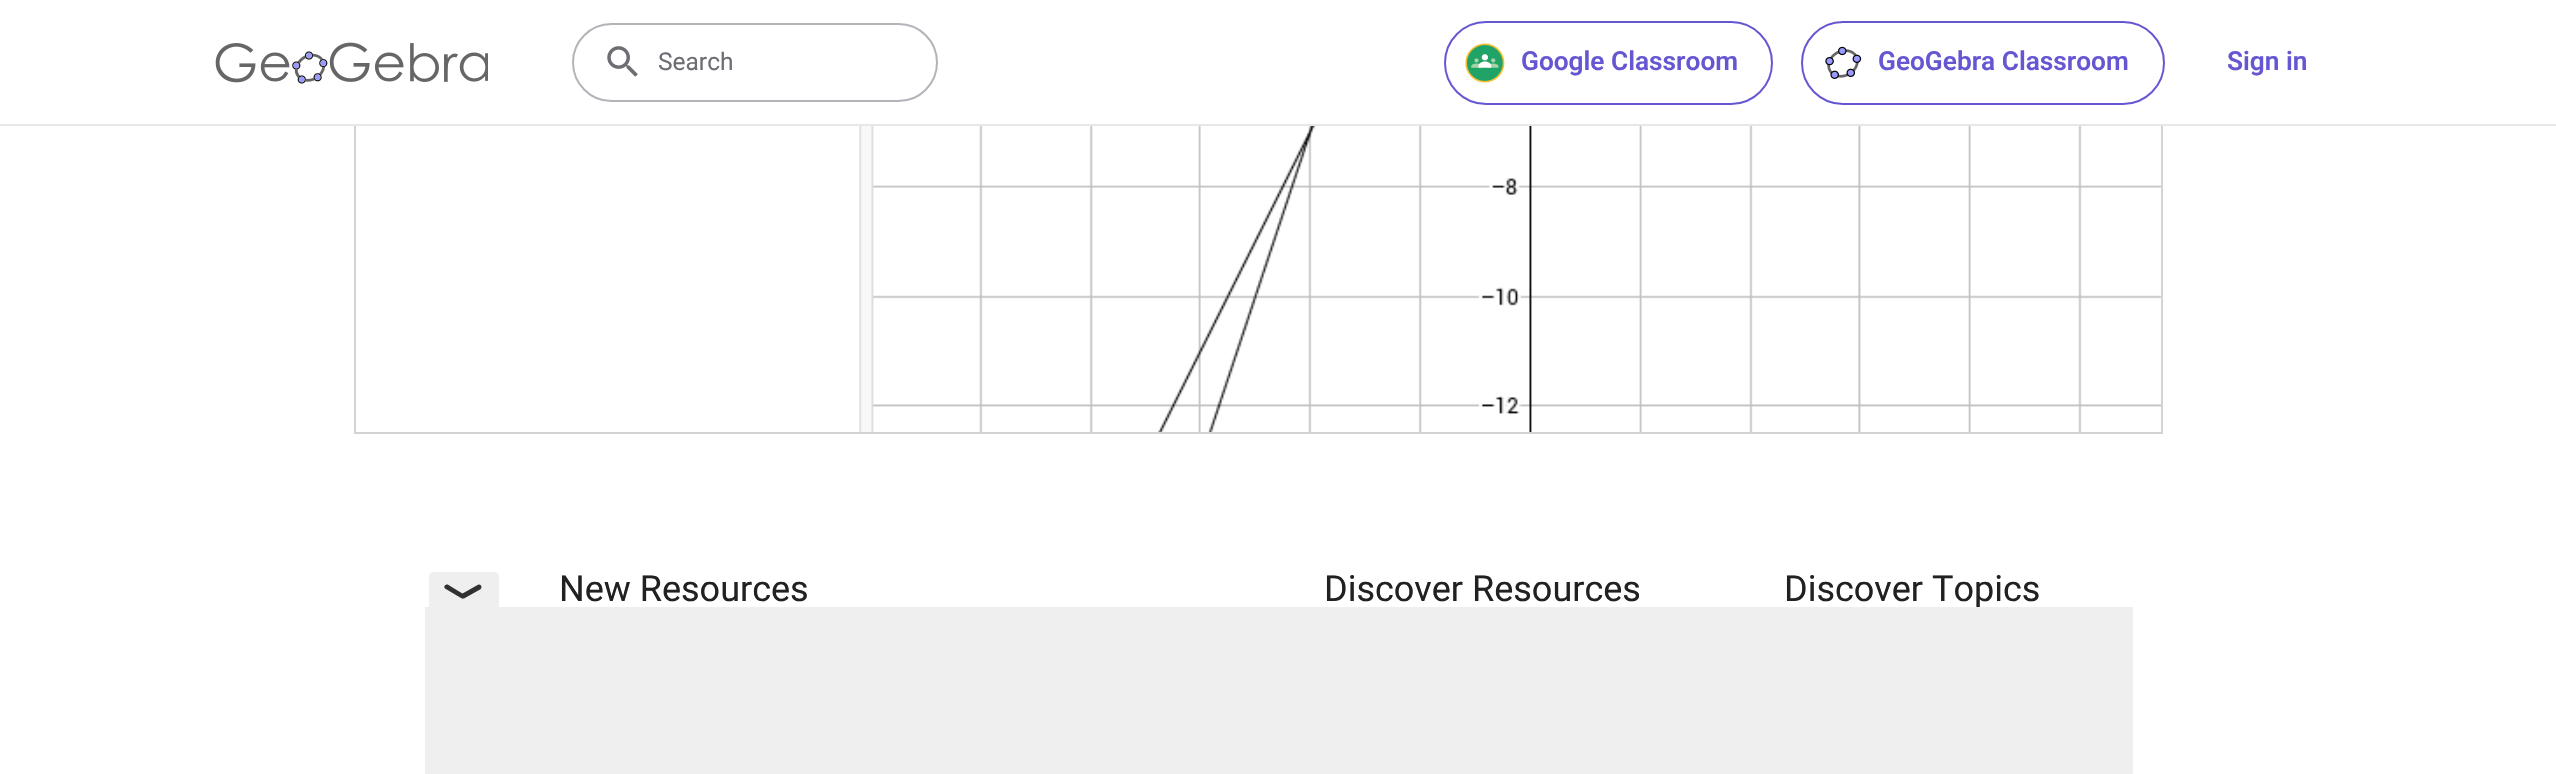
static SkFont makeFont(const char* family, int weight, float size, bool italic = false) {
  SkFontStyle style(weight, SkFontStyle::kNormal_Width,
    italic ? SkFontStyle::kItalic_Slant : SkFontStyle::kUpright_Slant);
  SkFont result(fontMgr->matchFamilyStyle(family, style), size);
  result.setSubpixel(true);
  return result;
}

static void text(SkCanvas* c, const char* s, float x, float y, const SkFont& font, SkColor color) {
  SkPaint ink(SkColor4f::FromColor(color));
  ink.setAntiAlias(true);
  c->drawString(s, x, y, font, ink);
}

static void box(SkCanvas* c, float l, float t, float r, float b, SkColor color) {
  SkPaint ink(SkColor4f::FromColor(color));
  ink.setAntiAlias(true);
  c->drawRect(SkRect::MakeLTRB(l, t, r, b), ink);
}

static void picture(SkCanvas* c, const char* path, float l, float t, float r, float b) {
  auto image = SkImages::DeferredFromEncodedData(SkData::MakeFromFileName(path));
  c->drawImageRect(image, SkRect::MakeLTRB(l, t, r, b), SkSamplingOptions());
}

void draw(SkCanvas* c) {
  SkPaint paint;
  paint.setAntiAlias(true);
  c->clear(0xffffffff);
  picture(c, "img_05.png", 859, 126, 2161, 432);
  paint.setStyle(SkPaint::kStroke_Style);
  paint.setStrokeWidth(2);
  paint.setColor(0xffd3d3d3);
  c->drawRect(SkRect::MakeLTRB(355, -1, 2162, 433), paint);
  box(c, 354, 0, 2163, 124, 0xffffffff);
  box(c, 0, 124, 2556, 126, 0xffe6e6eb);
  picture(c, "img_01.png", 215, 42, 488, 84);
  paint.setColor(0xffb4b3ba);
  c->drawRoundRect(SkRect::MakeLTRB(573, 24, 937, 101), 38.5f, 38.5f, paint);
  picture(c, "img_02.png", 607, 46, 638, 77);
  SkFont face1 = makeFont("Roboto", 400, 24.5f);
  text(c, "Search", 658, 70, face1, 0xff6e6d73);
  paint.setColor(0xff6557d2);
  c->drawRoundRect(SkRect::MakeLTRB(1445, 22, 1772, 104), 41, 41, paint);
  picture(c, "img_03.png", 1465, 43, 1505, 83);
  SkFont face2 = makeFont("Roboto", 600, 26.25f);
  text(c, "Google Classroom", 1521, 70, face2, 0xff6557d2);
  c->drawRoundRect(SkRect::MakeLTRB(1802, 22, 2164, 104), 41, 41, paint);
  picture(c, "img_04.png", 1825, 46, 1862, 79);
  text(c, "GeoGebra Classroom", 1878, 70, face2, 0xff6557d2);
  text(c, "Sign in", 2227, 70, face2, 0xff6557d2);
  SkFont face3 = makeFont("Roboto", 400, 36);
  text(c, "New Resources", 559, 601, face3, 0xff212121);
  text(c, "Discover Resources", 1324, 601, face3, 0xff212121);
  text(c, "Discover Topics", 1784, 601, face3, 0xff212121);
  paint.setStyle(SkPaint::kFill_Style);
  paint.setColor(0xffefefef);
  c->drawPath(SkPathBuilder().moveTo(433, 572).lineTo(495, 572).cubicTo(497, 572, 499, 574, 499, 576).lineTo(499, 607).lineTo(429, 607).lineTo(429, 576).cubicTo(429, 574, 431, 572, 433, 572).close().detach(), paint);
  paint.setColor(0xff313131);
  c->drawPath(SkPathBuilder().moveTo(448.5f, 585).lineTo(464, 594.5f).cubicTo(466, 596.5f, 463, 599.5f, 461, 598).lineTo(445, 588.5f).cubicTo(443, 586.5f, 446, 583.5f, 448.5f, 585).close().detach(), paint);
  c->drawPath(SkPathBuilder().moveTo(462.5f, 593.5f).lineTo(478.5f, 584.5f).cubicTo(481.5f, 584, 482.5f, 588, 480, 589.5f).lineTo(464, 598.5f).cubicTo(461, 599, 460, 595, 462.5f, 593.5f).close().detach(), paint);
  box(c, 425, 607, 2133, 774, 0xffefefef);
}
